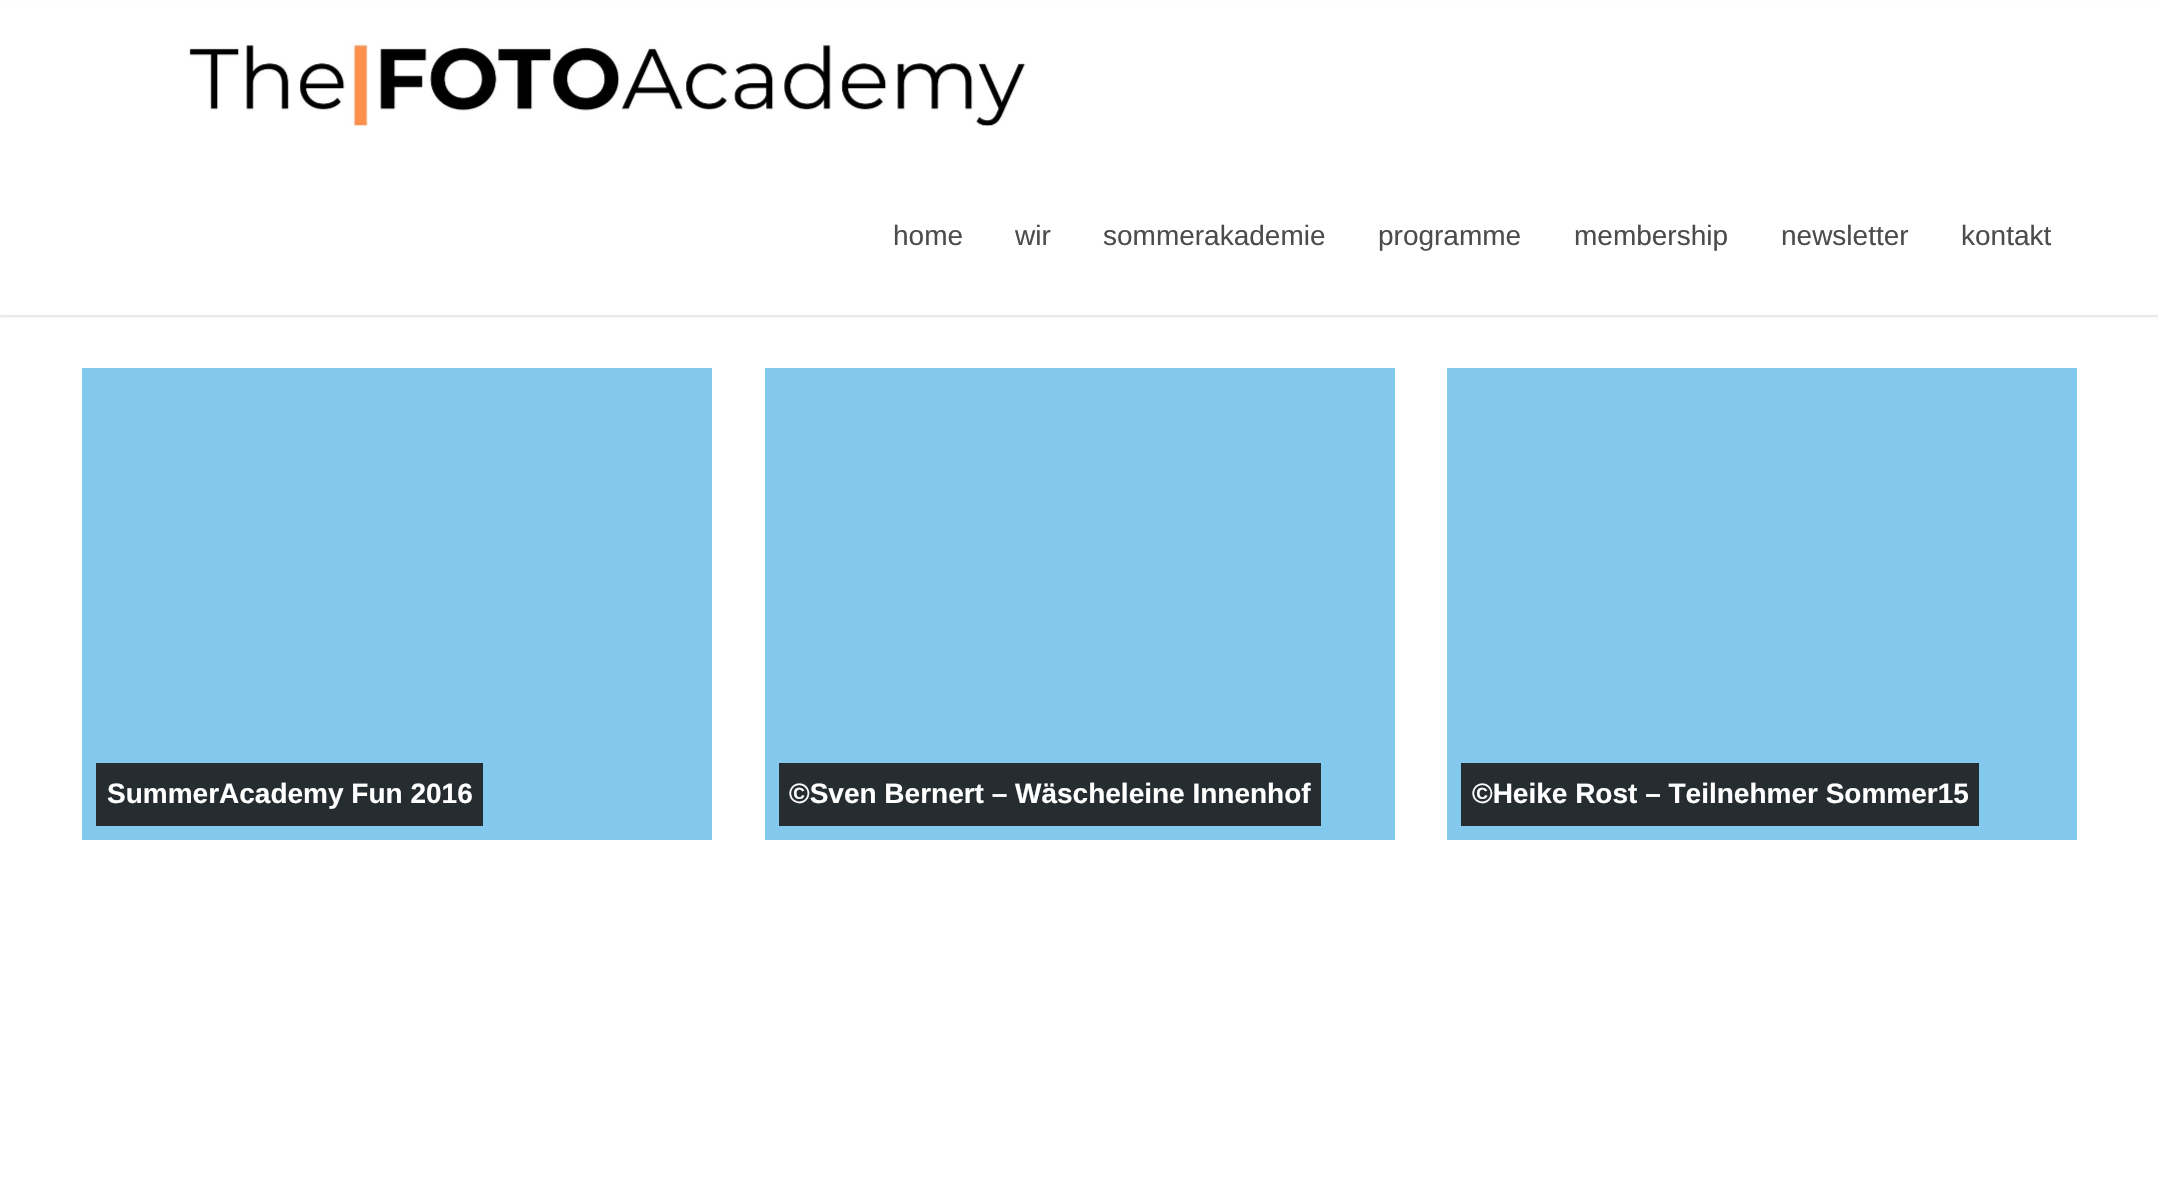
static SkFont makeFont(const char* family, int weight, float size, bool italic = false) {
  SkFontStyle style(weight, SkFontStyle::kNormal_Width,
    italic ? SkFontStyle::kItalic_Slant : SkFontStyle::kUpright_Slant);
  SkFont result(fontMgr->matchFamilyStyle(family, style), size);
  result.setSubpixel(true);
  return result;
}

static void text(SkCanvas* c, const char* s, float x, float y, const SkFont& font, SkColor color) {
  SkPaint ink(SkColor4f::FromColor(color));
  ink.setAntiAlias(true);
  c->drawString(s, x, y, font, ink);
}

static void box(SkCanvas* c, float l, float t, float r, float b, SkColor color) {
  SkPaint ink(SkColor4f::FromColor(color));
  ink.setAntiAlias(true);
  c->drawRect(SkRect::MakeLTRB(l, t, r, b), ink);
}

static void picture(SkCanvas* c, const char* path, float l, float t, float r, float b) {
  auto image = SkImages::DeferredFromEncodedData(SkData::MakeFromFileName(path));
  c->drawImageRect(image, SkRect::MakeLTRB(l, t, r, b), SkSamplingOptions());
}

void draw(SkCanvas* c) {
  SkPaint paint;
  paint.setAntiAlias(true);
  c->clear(0xffffffff);
  paint.setColor(0x1a000000);
  paint.setMaskFilter(SkMaskFilter::MakeBlur(kNormal_SkBlurStyle, 1));
  c->drawRect(SkRect::MakeLTRB(0, 2, 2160, 317), paint);
  paint.setMaskFilter(nullptr);
  box(c, 0, 1, 2158, 315, 0xffffffff);
  picture(c, "img_01.png", 189, 42, 1027, 127);
  SkFont face1 = makeFont("Liberation Sans", 400, 28);
  text(c, "home", 893, 245, face1, 0xff4c4c4c);
  text(c, "wir", 1015, 245, face1, 0xff4c4c4c);
  text(c, "sommerakademie", 1103, 245, face1, 0xff4c4c4c);
  text(c, "programme", 1378, 245, face1, 0xff4c4c4c);
  text(c, "membership", 1574, 245, face1, 0xff4c4c4c);
  text(c, "newsletter", 1781, 245, face1, 0xff4c4c4c);
  text(c, "kontakt", 1961, 245, face1, 0xff4c4c4c);
  box(c, 82, 368, 712, 840, 0xff82c9ed);
  box(c, 96, 763, 483, 826, 0xff262d31);
  SkFont face2 = makeFont("Liberation Sans", 700, 28);
  text(c, "SummerAcademy Fun 2016", 107, 803, face2, 0xffffffff);
  box(c, 765, 368, 1395, 840, 0xff82c9ed);
  box(c, 779, 763, 1321, 826, 0xff262d31);
  text(c, "©Sven Bernert – Wäscheleine Innenhof", 789, 803, face2, 0xffffffff);
  box(c, 1447, 368, 2077, 840, 0xff82c9ed);
  box(c, 1461, 763, 1979, 826, 0xff262d31);
  text(c, "©Heike Rost – Teilnehmer Sommer15", 1472, 803, face2, 0xffffffff);
}
